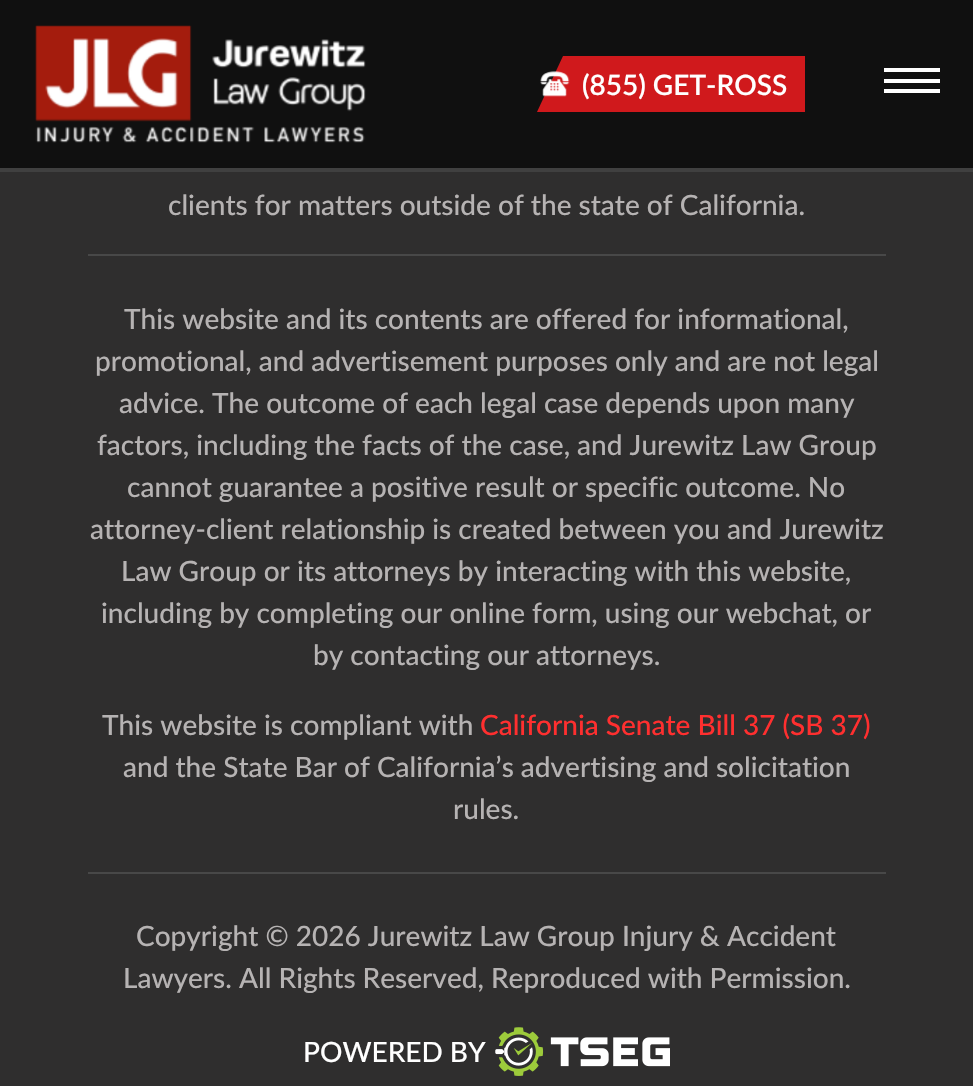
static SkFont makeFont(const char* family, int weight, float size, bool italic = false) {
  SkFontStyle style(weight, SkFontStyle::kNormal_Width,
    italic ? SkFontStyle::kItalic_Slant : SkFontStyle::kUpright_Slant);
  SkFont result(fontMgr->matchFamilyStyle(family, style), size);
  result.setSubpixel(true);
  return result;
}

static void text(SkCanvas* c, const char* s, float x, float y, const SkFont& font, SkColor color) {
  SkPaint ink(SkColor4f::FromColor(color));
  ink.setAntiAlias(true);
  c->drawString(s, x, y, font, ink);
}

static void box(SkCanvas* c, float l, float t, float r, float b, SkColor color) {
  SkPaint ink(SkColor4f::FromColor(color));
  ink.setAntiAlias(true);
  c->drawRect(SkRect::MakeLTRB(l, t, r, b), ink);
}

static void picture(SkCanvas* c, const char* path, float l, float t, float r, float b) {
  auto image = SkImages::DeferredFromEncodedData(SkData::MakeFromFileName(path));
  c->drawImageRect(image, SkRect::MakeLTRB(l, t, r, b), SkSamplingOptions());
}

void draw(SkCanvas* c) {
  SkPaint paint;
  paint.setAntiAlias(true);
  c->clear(0xff2f2e2e);
  box(c, 0, 0, 973, 172, 0xd90a0a0a);
  box(c, 0, 168, 973, 172, 0x33ffffff);
  picture(c, "img_01.png", 35, 25, 366, 143);
  paint.setColor(0xffd0191c);
  c->drawPath(SkPathBuilder().moveTo(563, 56).lineTo(668, 56).lineTo(642, 112).lineTo(537, 112).close().detach(), paint);
  box(c, 642, 56, 805, 112, 0xffd0191c);
  picture(c, "img_02.png", 540, 71, 570, 97);
  SkFont face1 = makeFont("Lato", 600, 28);
  text(c, "(855) GET-ROSS", 582, 95, face1, 0xffffffff);
  box(c, 884, 68, 940, 72, 0xffffffff);
  box(c, 884, 79, 940, 83, 0xffffffff);
  box(c, 884, 89, 940, 93, 0xffffffff);
  SkFont face2 = makeFont("Lato", 500, 28);
  text(c, "clients for matters outside of the state of California.", 168, 215, face2, 0xffb6b3b3);
  box(c, 88, 254, 886, 256, 0xff484848);
  box(c, 88, 872, 886, 874, 0xff484848);
  text(c, "This website and its contents are offered for informational,", 124, 329, face2, 0xffb6b3b3);
  text(c, "promotional, and advertisement purposes only and are not legal", 95, 371, face2, 0xffb6b3b3);
  text(c, "advice. The outcome of each legal case depends upon many", 119, 413, face2, 0xffb6b3b3);
  text(c, "factors, including the facts of the case, and Jurewitz Law Group", 97, 455, face2, 0xffb6b3b3);
  text(c, "cannot guarantee a positive result or specific outcome. No", 127, 497, face2, 0xffb6b3b3);
  text(c, "attorney-client relationship is created between you and Jurewitz", 90, 539, face2, 0xffb6b3b3);
  text(c, "Law Group or its attorneys by interacting with this website,", 121, 581, face2, 0xffb6b3b3);
  text(c, "including by completing our online form, using our webchat, or", 101, 623, face2, 0xffb6b3b3);
  text(c, "by contacting our attorneys.", 313, 665, face2, 0xffb6b3b3);
  text(c, "This website is compliant with", 102, 735, face2, 0xffb6b3b3);
  text(c, "California Senate Bill 37 (SB 37)", 480, 735, face2, 0xffff2f2f);
  text(c, "and the State Bar of California’s advertising and solicitation", 123, 777, face2, 0xffb6b3b3);
  text(c, "rules.", 453, 819, face2, 0xffb6b3b3);
  text(c, "Copyright © 2026 Jurewitz Law Group Injury & Accident", 136, 946, face2, 0xffb6b3b3);
  text(c, "Lawyers. All Rights Reserved, Reproduced with Permission.", 123, 988, face2, 0xffb6b3b3);
  text(c, "POWERED BY", 303, 1062, face2, 0xffffffff);
  picture(c, "img_03.png", 495, 1027, 670, 1076);
}
